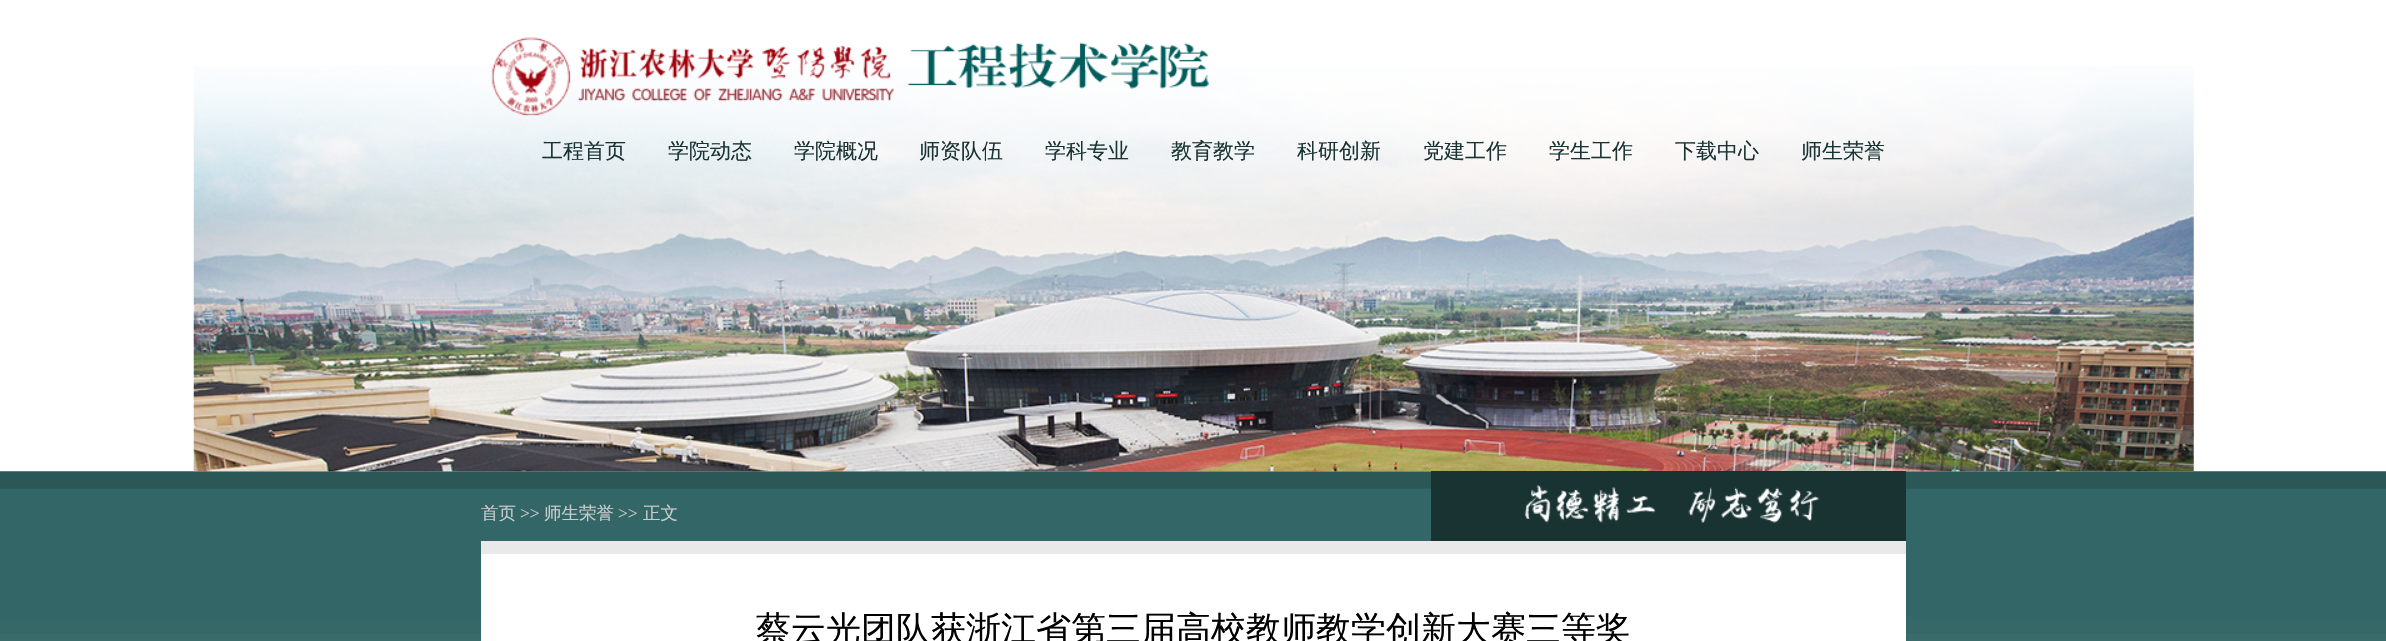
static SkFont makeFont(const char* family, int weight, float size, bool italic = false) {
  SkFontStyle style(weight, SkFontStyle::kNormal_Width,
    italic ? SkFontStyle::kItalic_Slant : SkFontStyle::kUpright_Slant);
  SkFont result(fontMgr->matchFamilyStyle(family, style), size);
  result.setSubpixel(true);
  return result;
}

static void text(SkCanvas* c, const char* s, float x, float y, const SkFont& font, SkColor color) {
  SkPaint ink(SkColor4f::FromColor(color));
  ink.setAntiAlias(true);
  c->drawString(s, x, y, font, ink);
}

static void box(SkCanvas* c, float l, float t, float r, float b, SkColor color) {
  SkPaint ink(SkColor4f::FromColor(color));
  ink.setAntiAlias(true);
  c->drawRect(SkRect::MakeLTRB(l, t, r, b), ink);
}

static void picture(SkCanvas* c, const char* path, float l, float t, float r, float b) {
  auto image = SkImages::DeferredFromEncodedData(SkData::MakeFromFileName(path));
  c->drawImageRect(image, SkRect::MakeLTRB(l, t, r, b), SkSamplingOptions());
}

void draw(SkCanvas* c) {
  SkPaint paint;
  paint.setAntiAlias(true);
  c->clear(0xffffffff);
  picture(c, "img_04.png", 0, 471, 2386, 641);
  picture(c, "img_01.png", 193, 66, 2194, 472);
  picture(c, "img_02.png", 491, 37, 894, 116);
  picture(c, "img_03.png", 907, 42, 1209, 89);
  SkFont face1 = makeFont("WenQuanYi Zen Hei", 500, 21);
  text(c, "工程首页", 542, 158, face1, 0xff193333);
  text(c, "学院动态", 668, 158, face1, 0xff193333);
  text(c, "学院概况", 794, 158, face1, 0xff193333);
  text(c, "师资队伍", 919, 158, face1, 0xff193333);
  text(c, "学科专业", 1045, 158, face1, 0xff193333);
  text(c, "教育教学", 1171, 158, face1, 0xff193333);
  text(c, "科研创新", 1297, 158, face1, 0xff193333);
  text(c, "党建工作", 1423, 158, face1, 0xff193333);
  text(c, "学生工作", 1549, 158, face1, 0xff193333);
  text(c, "下载中心", 1675, 158, face1, 0xff193333);
  text(c, "师生荣誉", 1801, 158, face1, 0xff193333);
  SkFont face2 = makeFont("WenQuanYi Zen Hei", 500, 17.5f);
  text(c, "首页", 481, 519, face2, 0xffcccccc);
  SkFont face3 = makeFont("Liberation Serif", 400, 17.5f);
  text(c, ">>", 520, 519, face3, 0xffcccccc);
  text(c, "师生荣誉", 544, 519, face2, 0xffcccccc);
  text(c, ">>", 618, 519, face3, 0xffcccccc);
  text(c, "正文", 643, 519, face2, 0xffcccccc);
  box(c, 1431, 471, 1906, 541, 0xff193333);
  picture(c, "img_05.png", 1524, 485, 1819, 523);
  box(c, 481, 541, 1906, 554, 0xffe9e9e9);
  box(c, 481, 554, 1906, 641, 0xffffffff);
  SkFont face4 = makeFont("WenQuanYi Zen Hei", 500, 35);
  text(c, "蔡云光团队获浙江省第三届高校教师教学创新大赛三等奖", 756, 641, face4, 0xff000000);
}
